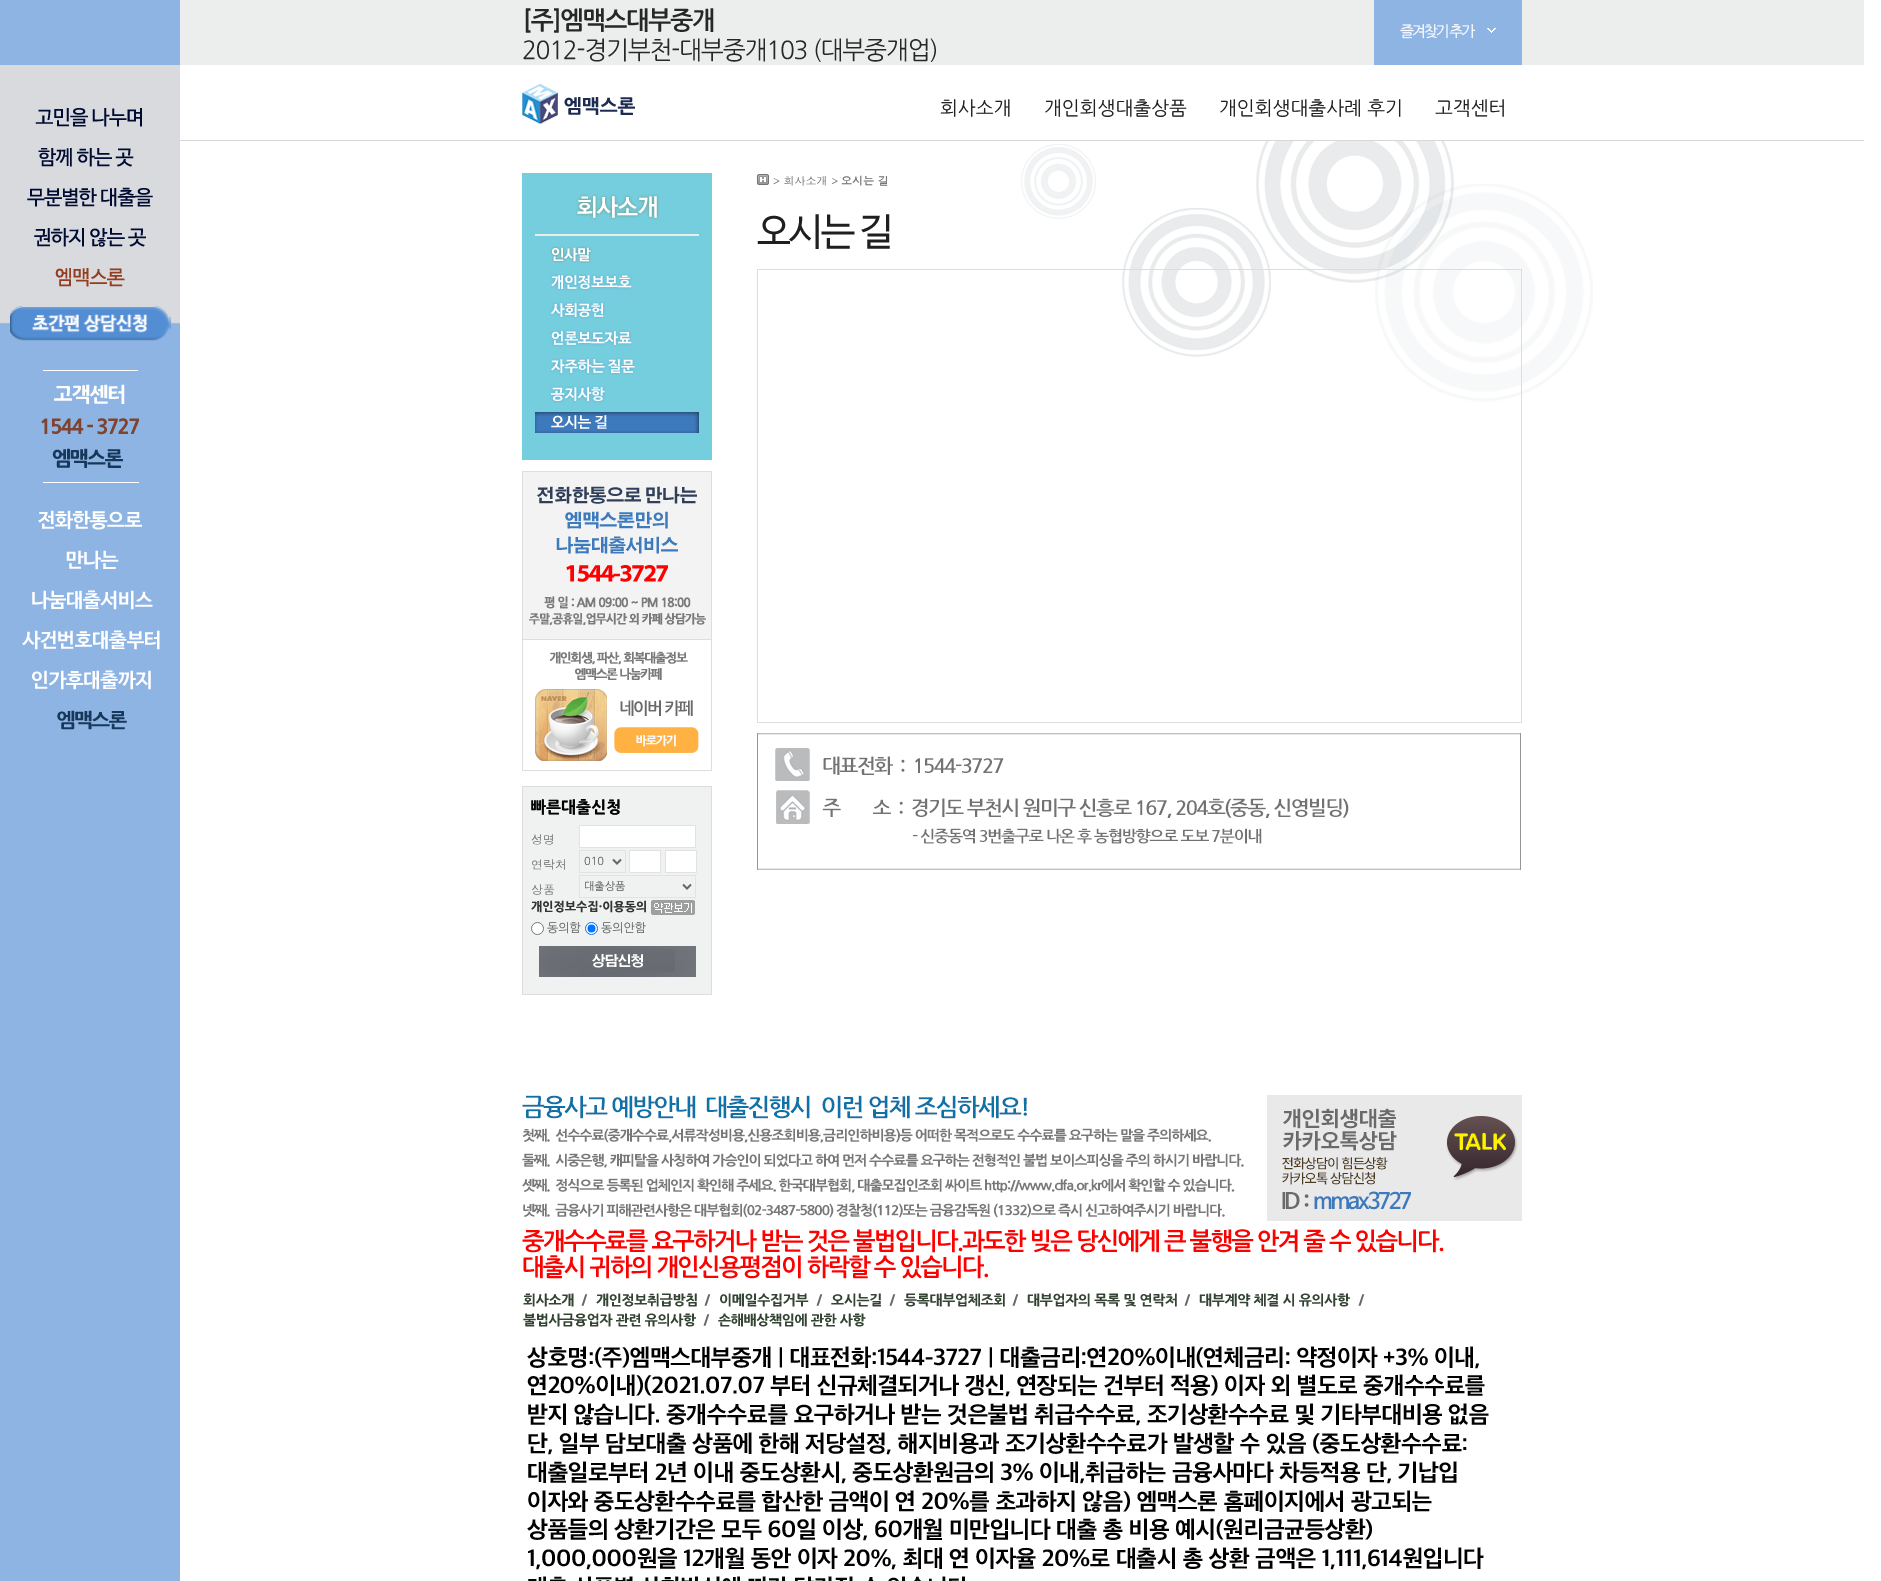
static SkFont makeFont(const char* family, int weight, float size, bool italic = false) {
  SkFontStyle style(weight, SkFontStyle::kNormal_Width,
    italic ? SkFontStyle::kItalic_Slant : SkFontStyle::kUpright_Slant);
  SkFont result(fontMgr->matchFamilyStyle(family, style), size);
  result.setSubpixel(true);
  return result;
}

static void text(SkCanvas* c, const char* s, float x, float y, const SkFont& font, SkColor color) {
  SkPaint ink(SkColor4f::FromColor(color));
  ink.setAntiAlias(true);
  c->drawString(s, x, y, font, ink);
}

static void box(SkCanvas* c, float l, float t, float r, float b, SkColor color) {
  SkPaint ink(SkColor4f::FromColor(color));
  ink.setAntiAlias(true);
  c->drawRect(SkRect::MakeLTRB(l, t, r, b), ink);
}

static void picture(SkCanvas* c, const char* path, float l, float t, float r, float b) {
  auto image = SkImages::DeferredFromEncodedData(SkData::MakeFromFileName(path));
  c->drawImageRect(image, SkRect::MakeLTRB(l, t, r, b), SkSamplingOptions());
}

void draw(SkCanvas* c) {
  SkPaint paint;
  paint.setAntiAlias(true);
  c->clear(0xffffffff);
  box(c, 0, 0, 180, 1581, 0xff8eb4e3);
  box(c, 0, 65, 180, 305, 0xffd9dade);
  picture(c, "img_01.png", 27, 108, 153, 287);
  picture(c, "img_02.png", 0, 305, 180, 341);
  picture(c, "img_03.png", 22, 370, 160, 730);
  box(c, 180, 0, 1864, 65, 0xffeceded);
  box(c, 180, 140, 1864, 141, 0xffd7d7d7);
  picture(c, "img_04.png", 523, 8, 936, 62);
  box(c, 1374, 0, 1522, 65, 0xff8eb4e3);
  picture(c, "img_05.png", 1400, 24, 1496, 39);
  picture(c, "img_06.png", 522, 84, 635, 124);
  SkFont face1 = makeFont("NanumGothic", 400, 19);
  text(c, "회사소개", 940, 115, face1, 0xff232221);
  text(c, "개인회생대출상품", 1044, 115, face1, 0xff232221);
  text(c, "개인회생대출사례 후기", 1219, 115, face1, 0xff232221);
  text(c, "고객센터", 1435, 115, face1, 0xff232221);
  picture(c, "img_07.png", 757, 174, 769, 185);
  SkFont face2 = makeFont("Dotum", 400, 11);
  text(c, "> 회사소개 >", 773, 185, face2, 0xff767676);
  SkFont face3 = makeFont("Dotum", 700, 11);
  text(c, "오시는 길", 841, 185, face3, 0xff767676);
  picture(c, "img_08.png", 757, 214, 890, 249);
  picture(c, "img_10.png", 1021, 141, 1593, 402);
  paint.setStyle(SkPaint::kStroke_Style);
  paint.setStrokeWidth(1);
  paint.setColor(0xffdddddd);
  c->drawRect(SkRect::MakeLTRB(757.5f, 269.5f, 1521.5f, 722.5f), paint);
  picture(c, "img_09.png", 757, 733, 1521, 870);
  box(c, 522, 173, 712, 460, 0xff75cede);
  box(c, 535, 234, 699, 236, 0xffebecec);
  picture(c, "img_11.png", 576, 194, 659, 220);
  picture(c, "img_12.png", 550, 246, 592, 263);
  picture(c, "img_13.png", 551, 274, 632, 291);
  picture(c, "img_14.png", 550, 302, 605, 319);
  picture(c, "img_15.png", 550, 330, 632, 347);
  picture(c, "img_16.png", 550, 358, 635, 375);
  picture(c, "img_17.png", 550, 386, 606, 403);
  picture(c, "img_18.png", 535, 412, 699, 433);
  picture(c, "img_19.png", 551, 415, 607, 429);
  picture(c, "img_20.png", 522, 471, 712, 640);
  picture(c, "img_21.png", 522, 640, 712, 771);
  paint.setStyle(SkPaint::kFill_Style);
  paint.setColor(0xfff0f1f1);
  c->drawRect(SkRect::MakeLTRB(522.5f, 786.5f, 711.5f, 994.5f), paint);
  paint.setStyle(SkPaint::kStroke_Style);
  paint.setColor(0xffdddddd);
  c->drawRect(SkRect::MakeLTRB(522.5f, 786.5f, 711.5f, 994.5f), paint);
  SkFont face4 = makeFont("NanumGothic", 800, 16);
  text(c, "빠른대출신청", 531, 813, face4, 0xff000101);
  SkFont face5 = makeFont("Dotum", 400, 12);
  text(c, "성명", 531, 844, face5, 0xff767676);
  paint.setStyle(SkPaint::kFill_Style);
  paint.setColor(0xffffffff);
  c->drawRect(SkRect::MakeLTRB(579.5f, 825.5f, 695.5f, 847.5f), paint);
  paint.setStyle(SkPaint::kStroke_Style);
  paint.setColor(0xffe2e2e2);
  c->drawRect(SkRect::MakeLTRB(579.5f, 825.5f, 695.5f, 847.5f), paint);
  text(c, "연락처", 531, 869, face5, 0xff767676);
  c->drawRect(SkRect::MakeLTRB(579.5f, 850.5f, 625.5f, 872.5f), paint);
  paint.setStrokeWidth(2);
  paint.setColor(0xff666666);
  c->drawPath(SkPathBuilder().moveTo(613, 859.5f).lineTo(617, 863.5f).lineTo(621, 859.5f).detach(), paint);
  SkFont face6 = makeFont("NanumGothic", 400, 11);
  text(c, "010", 584, 865, face6, 0xff666666);
  paint.setStyle(SkPaint::kFill_Style);
  paint.setColor(0xffffffff);
  c->drawRect(SkRect::MakeLTRB(629.5f, 850.5f, 660.5f, 872.5f), paint);
  paint.setStyle(SkPaint::kStroke_Style);
  paint.setStrokeWidth(1);
  paint.setColor(0xffe2e2e2);
  c->drawRect(SkRect::MakeLTRB(629.5f, 850.5f, 660.5f, 872.5f), paint);
  paint.setStyle(SkPaint::kFill_Style);
  paint.setColor(0xffffffff);
  c->drawRect(SkRect::MakeLTRB(665.5f, 850.5f, 696.5f, 872.5f), paint);
  paint.setStyle(SkPaint::kStroke_Style);
  paint.setColor(0xffe2e2e2);
  c->drawRect(SkRect::MakeLTRB(665.5f, 850.5f, 696.5f, 872.5f), paint);
  text(c, "상품", 531, 894, face5, 0xff767676);
  c->drawRect(SkRect::MakeLTRB(579.5f, 875.5f, 695.5f, 897.5f), paint);
  paint.setStrokeWidth(2);
  paint.setColor(0xff666666);
  c->drawPath(SkPathBuilder().moveTo(683, 884.5f).lineTo(687, 888.5f).lineTo(691, 884.5f).detach(), paint);
  text(c, "대출상품", 584, 890, face6, 0xff666666);
  SkFont face7 = makeFont("NanumGothic", 800, 12);
  text(c, "개인정보수집·이용동의", 531, 911, face7, 0xff333333);
  picture(c, "img_22.png", 651, 900, 695, 915);
  paint.setStyle(SkPaint::kFill_Style);
  paint.setColor(0xffffffff);
  c->drawCircle(537.5f, 928.5f, 6, paint);
  paint.setStyle(SkPaint::kStroke_Style);
  paint.setStrokeWidth(1);
  paint.setColor(0xff767676);
  c->drawCircle(537.5f, 928.5f, 6, paint);
  SkFont face8 = makeFont("NanumGothic", 400, 12);
  text(c, "동의함", 547, 932, face8, 0xff666666);
  paint.setStyle(SkPaint::kFill_Style);
  paint.setColor(0xffffffff);
  c->drawCircle(591.5f, 928.5f, 6, paint);
  paint.setStyle(SkPaint::kStroke_Style);
  paint.setColor(0xff0075ff);
  c->drawCircle(591.5f, 928.5f, 6, paint);
  paint.setStyle(SkPaint::kFill_Style);
  c->drawCircle(591.5f, 928.5f, 4, paint);
  text(c, "동의안함", 601, 932, face8, 0xff666666);
  picture(c, "img_23.png", 539, 946, 696, 977);
  picture(c, "img_24.png", 522, 1095, 1244, 1218);
  picture(c, "img_25.png", 1267, 1095, 1522, 1221);
  picture(c, "img_26.png", 522, 1229, 1444, 1279);
  picture(c, "img_27.png", 523, 1293, 574, 1307);
  picture(c, "img_28.png", 581, 1294, 588, 1306);
  picture(c, "img_29.png", 596, 1293, 697, 1307);
  picture(c, "img_28.png", 704, 1294, 711, 1306);
  picture(c, "img_30.png", 720, 1293, 809, 1307);
  picture(c, "img_28.png", 816, 1294, 823, 1306);
  picture(c, "img_31.png", 831, 1293, 881, 1307);
  picture(c, "img_28.png", 889, 1294, 896, 1306);
  picture(c, "img_32.png", 904, 1293, 1005, 1307);
  picture(c, "img_28.png", 1012, 1294, 1019, 1306);
  picture(c, "img_33.png", 1027, 1293, 1177, 1307);
  picture(c, "img_28.png", 1184, 1294, 1191, 1306);
  picture(c, "img_34.png", 1199, 1293, 1350, 1307);
  picture(c, "img_28.png", 1358, 1294, 1365, 1306);
  picture(c, "img_35.png", 523, 1313, 696, 1327);
  picture(c, "img_28.png", 703, 1314, 710, 1326);
  picture(c, "img_36.png", 718, 1313, 866, 1327);
  picture(c, "img_37.png", 527, 1346, 1489, 1581);
}
